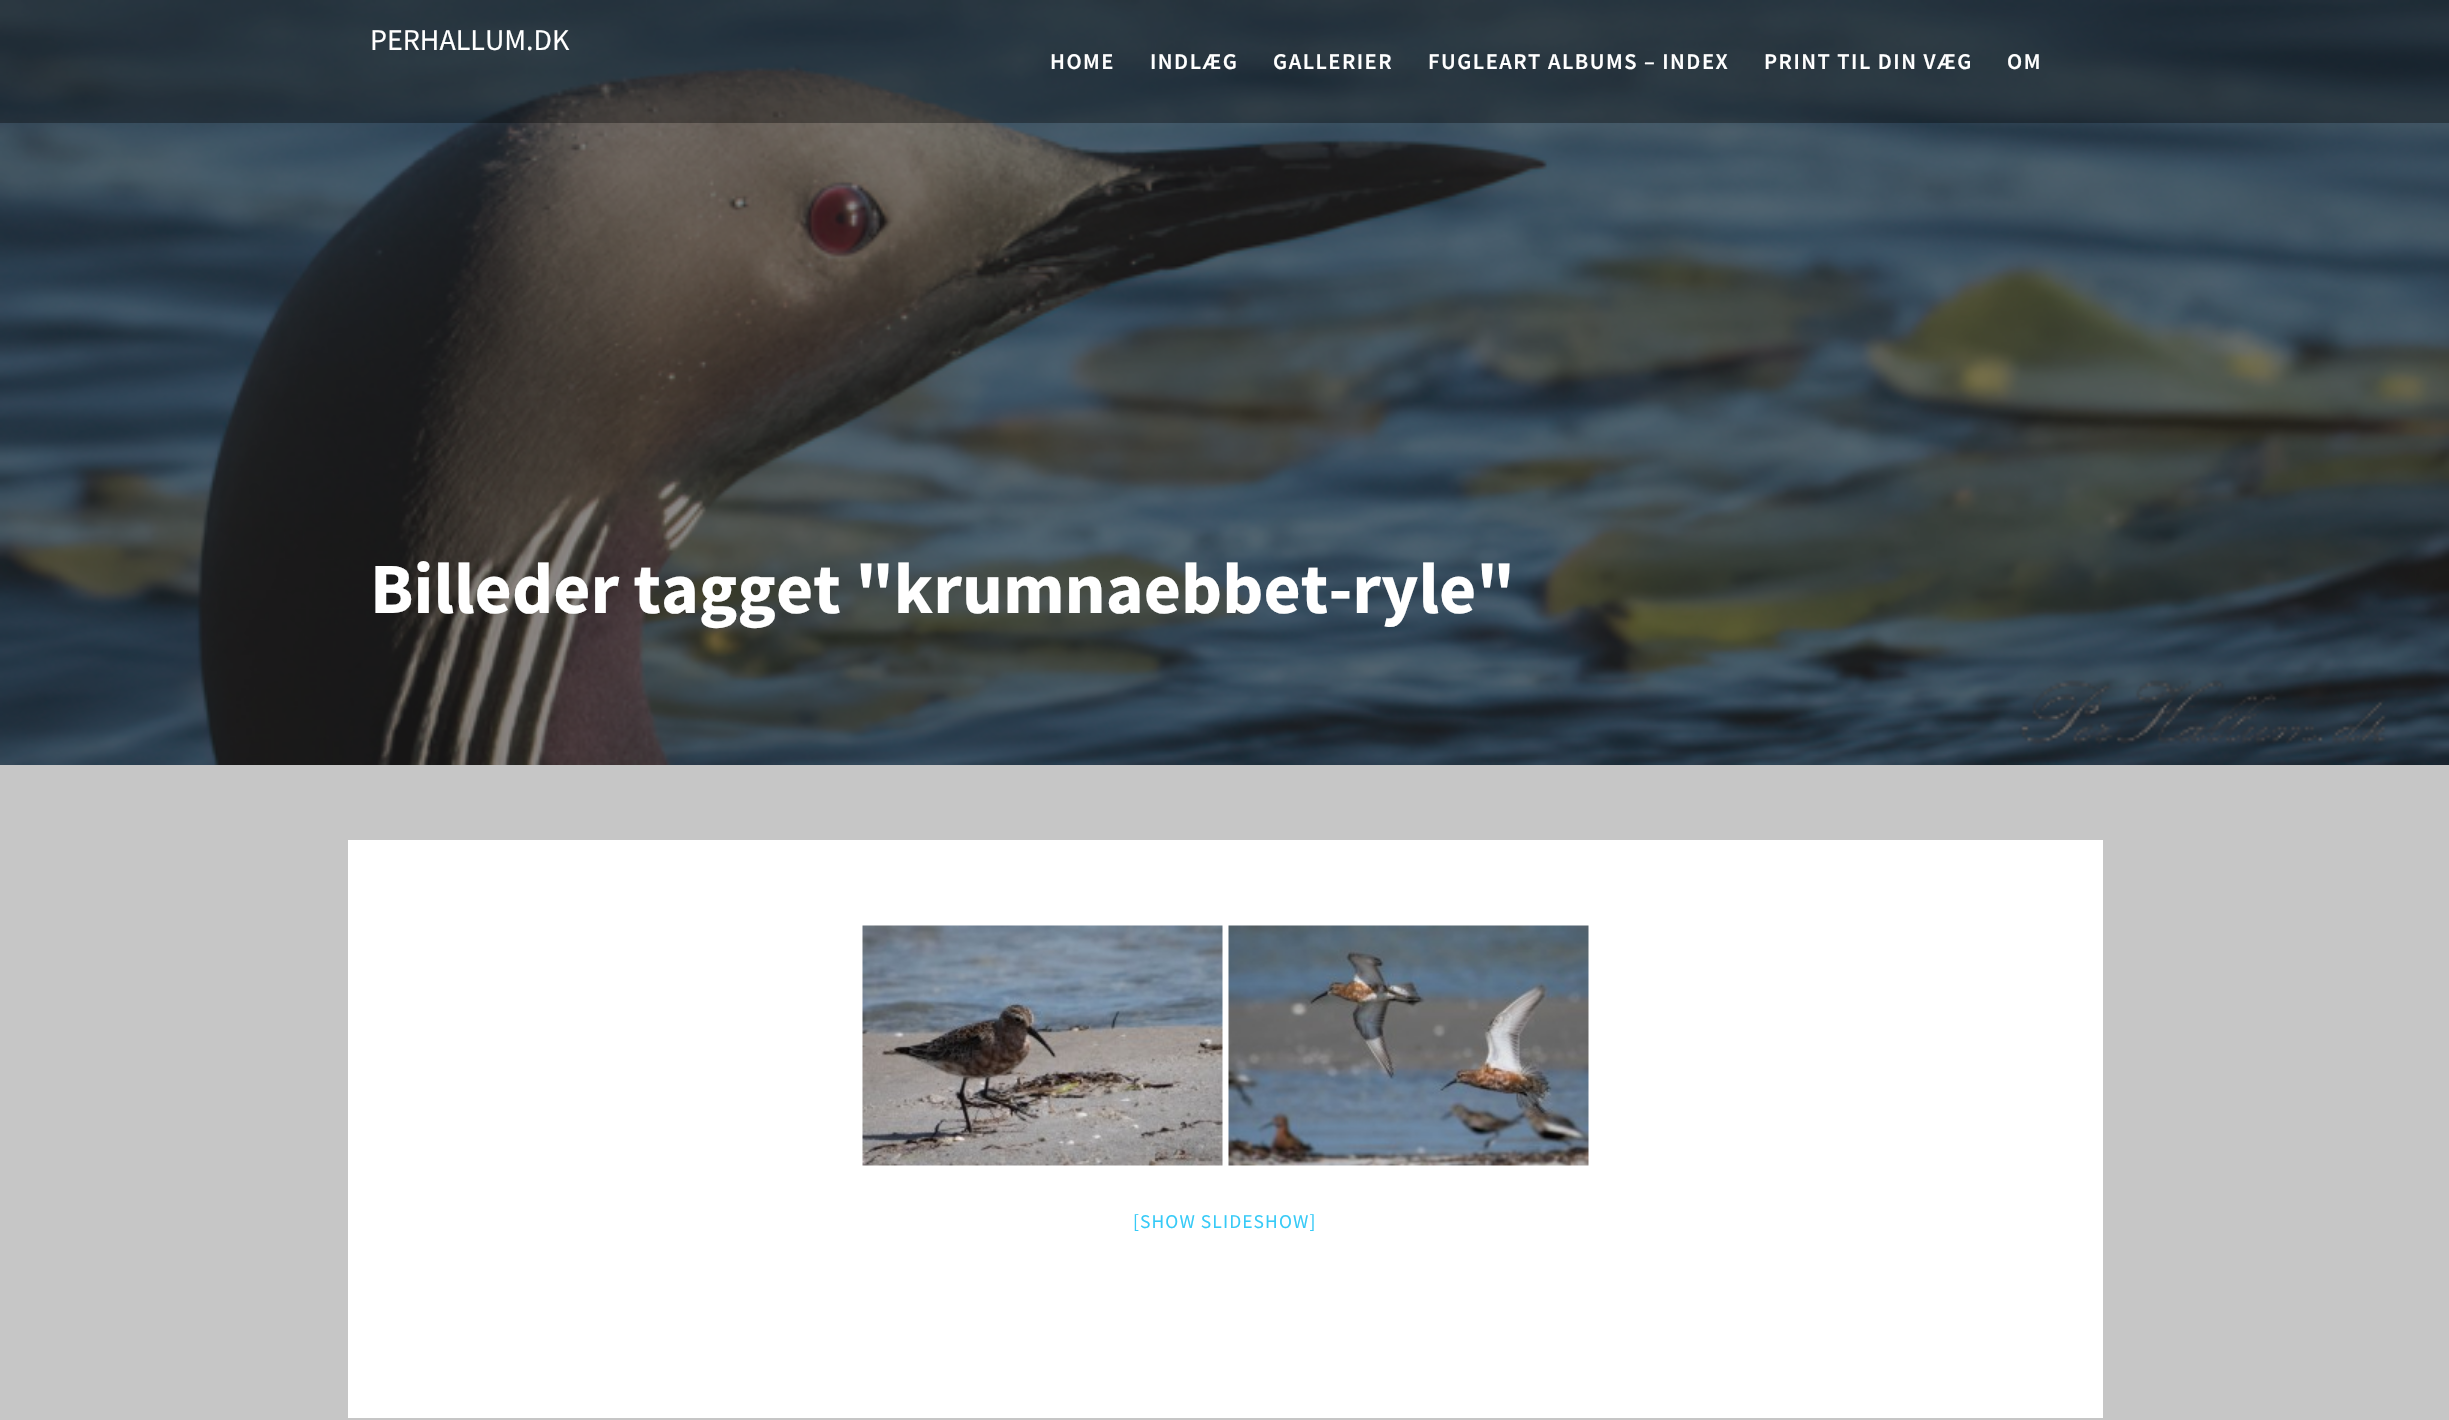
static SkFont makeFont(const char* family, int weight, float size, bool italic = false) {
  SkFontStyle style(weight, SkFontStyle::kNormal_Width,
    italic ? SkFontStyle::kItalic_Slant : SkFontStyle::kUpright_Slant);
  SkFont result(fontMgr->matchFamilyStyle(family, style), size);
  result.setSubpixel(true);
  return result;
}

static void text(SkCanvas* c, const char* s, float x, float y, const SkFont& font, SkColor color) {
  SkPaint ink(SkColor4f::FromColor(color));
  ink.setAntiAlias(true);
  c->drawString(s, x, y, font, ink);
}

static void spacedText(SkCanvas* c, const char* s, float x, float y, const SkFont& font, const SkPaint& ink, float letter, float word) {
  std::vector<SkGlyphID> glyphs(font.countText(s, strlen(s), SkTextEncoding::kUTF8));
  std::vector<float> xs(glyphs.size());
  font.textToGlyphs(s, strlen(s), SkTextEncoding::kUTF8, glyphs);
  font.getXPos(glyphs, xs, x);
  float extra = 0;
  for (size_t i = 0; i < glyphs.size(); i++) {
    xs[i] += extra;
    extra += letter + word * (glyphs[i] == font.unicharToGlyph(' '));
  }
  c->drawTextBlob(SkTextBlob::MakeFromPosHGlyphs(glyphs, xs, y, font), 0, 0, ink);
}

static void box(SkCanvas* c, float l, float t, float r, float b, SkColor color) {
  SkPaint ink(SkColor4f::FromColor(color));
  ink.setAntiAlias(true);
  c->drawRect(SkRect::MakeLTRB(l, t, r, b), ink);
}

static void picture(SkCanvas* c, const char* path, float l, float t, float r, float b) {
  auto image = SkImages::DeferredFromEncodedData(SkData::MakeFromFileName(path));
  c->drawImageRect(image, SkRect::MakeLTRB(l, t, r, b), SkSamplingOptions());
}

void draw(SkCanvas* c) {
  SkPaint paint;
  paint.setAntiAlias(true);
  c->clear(0xffc6c6c6);
  picture(c, "img_01.png", 0, 0, 2449, 765);
  box(c, 0, 0, 2449, 123, 0x59000000);
  SkFont face1 = makeFont("Source Sans Pro", 400, 30);
  text(c, "PERHALLUM.DK", 370, 50, face1, 0xffffffff);
  SkFont face2 = makeFont("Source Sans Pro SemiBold", 600, 22.5f);
  paint.setColor(0xffffffff);
  spacedText(c, "HOME", 1050, 69, face2, paint, 1.5f, 0);
  spacedText(c, "INDLÆG", 1150, 69, face2, paint, 1.5f, 0);
  spacedText(c, "GALLERIER", 1273, 69, face2, paint, 1.5f, 0);
  spacedText(c, "FUGLEART ALBUMS – INDEX", 1428, 69, face2, paint, 1.5f, 0);
  spacedText(c, "PRINT TIL DIN VÆG", 1764, 69, face2, paint, 1.5f, 0);
  spacedText(c, "OM", 2007, 69, face2, paint, 1.5f, 0);
  SkFont face3 = makeFont("Source Sans Pro", 700, 72);
  text(c, "Billeder tagget \"krumnaebbet-ryle\"", 370, 613, face3, 0xffffffff);
  box(c, 348, 840, 2103, 1418, 0xffffffff);
  picture(c, "img_02.png", 862, 925, 1223, 1166);
  picture(c, "img_03.png", 1228, 925, 1589, 1166);
  SkFont face4 = makeFont("Source Sans Pro", 400, 19.5f);
  paint.setColor(0xff36caf7);
  spacedText(c, "[SHOW SLIDESHOW]", 1133, 1228, face4, paint, 1.1f, 0);
}
